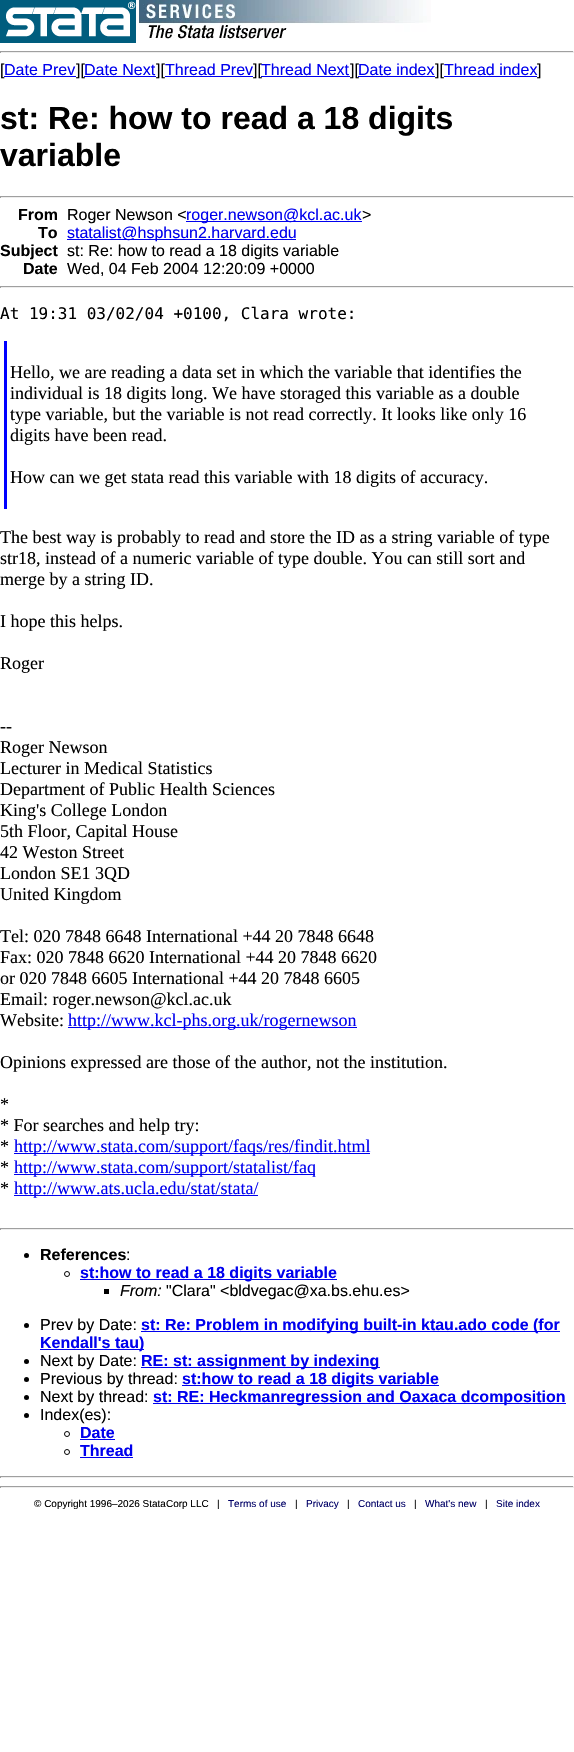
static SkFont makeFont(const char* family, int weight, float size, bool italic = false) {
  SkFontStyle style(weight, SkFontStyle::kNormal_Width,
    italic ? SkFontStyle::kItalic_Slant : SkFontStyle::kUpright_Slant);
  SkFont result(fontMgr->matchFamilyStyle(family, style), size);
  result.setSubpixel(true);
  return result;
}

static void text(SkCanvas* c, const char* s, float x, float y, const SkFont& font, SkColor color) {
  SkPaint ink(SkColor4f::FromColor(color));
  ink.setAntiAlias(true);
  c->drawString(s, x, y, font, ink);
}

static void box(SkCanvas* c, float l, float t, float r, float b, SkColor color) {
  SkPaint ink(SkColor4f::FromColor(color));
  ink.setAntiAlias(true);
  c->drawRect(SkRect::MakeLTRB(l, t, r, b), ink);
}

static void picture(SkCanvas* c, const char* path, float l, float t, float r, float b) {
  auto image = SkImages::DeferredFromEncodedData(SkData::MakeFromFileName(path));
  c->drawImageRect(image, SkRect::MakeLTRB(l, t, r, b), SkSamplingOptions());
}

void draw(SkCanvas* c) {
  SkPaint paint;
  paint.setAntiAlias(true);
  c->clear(0xffffffff);
  picture(c, "img_01.png", 0, 0, 136, 43);
  picture(c, "img_02.png", 139, 0, 431, 40);
  box(c, 0, 51, 574, 52, 0xff9f9f9f);
  box(c, 573, 51, 574, 53, 0xffeeeeee);
  box(c, 0, 52, 574, 53, 0xffeeeeee);
  box(c, 0, 51, 1, 53, 0xff9f9f9f);
  SkFont face1 = makeFont("Liberation Sans", 400, 16);
  text(c, "[", 0, 75, face1, 0xff000000);
  text(c, "Date Prev", 4, 75, face1, 0xff0000ee);
  box(c, 4, 76, 76, 77, 0xff0000ee);
  text(c, "][", 76, 75, face1, 0xff000000);
  text(c, "Date Next", 84, 75, face1, 0xff0000ee);
  box(c, 84, 76, 156, 77, 0xff0000ee);
  text(c, "][", 156, 75, face1, 0xff000000);
  text(c, "Thread Prev", 165, 75, face1, 0xff0000ee);
  box(c, 165, 76, 253, 77, 0xff0000ee);
  text(c, "][", 253, 75, face1, 0xff000000);
  text(c, "Thread Next", 261, 75, face1, 0xff0000ee);
  box(c, 261, 76, 350, 77, 0xff0000ee);
  text(c, "][", 350, 75, face1, 0xff000000);
  text(c, "Date index", 358, 75, face1, 0xff0000ee);
  box(c, 358, 76, 435, 77, 0xff0000ee);
  text(c, "][", 435, 75, face1, 0xff000000);
  text(c, "Thread index", 444, 75, face1, 0xff0000ee);
  box(c, 444, 76, 537, 77, 0xff0000ee);
  text(c, "]", 537, 75, face1, 0xff000000);
  SkFont face2 = makeFont("Liberation Sans", 700, 32);
  text(c, "st: Re: how to read a 18 digits", 0, 129, face2, 0xff000000);
  text(c, "variable", 0, 166, face2, 0xff000000);
  box(c, 0, 196, 574, 197, 0xff9f9f9f);
  box(c, 573, 196, 574, 198, 0xffeeeeee);
  box(c, 0, 197, 574, 198, 0xffeeeeee);
  box(c, 0, 196, 1, 198, 0xff9f9f9f);
  SkFont face3 = makeFont("Liberation Sans", 700, 16);
  text(c, "From", 18, 220, face3, 0xff000000);
  text(c, "Roger Newson <", 67, 220, face1, 0xff000000);
  box(c, 186, 221, 362, 222, 0xff0000ee);
  text(c, "roger.newson@kcl.ac.uk", 186, 220, face1, 0xff0000ee);
  text(c, ">", 362, 220, face1, 0xff000000);
  text(c, "To", 38, 238, face3, 0xff000000);
  box(c, 67, 239, 296, 240, 0xff0000ee);
  text(c, "statalist@hsphsun2.harvard.edu", 67, 238, face1, 0xff0000ee);
  text(c, "Subject", 0, 256, face3, 0xff000000);
  text(c, "st: Re: how to read a 18 digits variable", 67, 256, face1, 0xff000000);
  text(c, "Date", 23, 274, face3, 0xff000000);
  text(c, "Wed, 04 Feb 2004 12:20:09 +0000", 67, 274, face1, 0xff000000);
  box(c, 0, 286, 574, 287, 0xff9f9f9f);
  box(c, 573, 286, 574, 288, 0xffeeeeee);
  box(c, 0, 287, 574, 288, 0xffeeeeee);
  box(c, 0, 286, 1, 288, 0xff9f9f9f);
  SkFont face4 = makeFont("DejaVu Sans Mono", 400, 16);
  text(c, "At 19:31 03/02/04 +0100, Clara wrote:", 0, 319, face4, 0xff000000);
  box(c, 4, 341, 7, 509, 0xff0000ff);
  SkFont face5 = makeFont("Liberation Serif", 400, 18);
  text(c, "Hello, we are reading a data set in which the variable that identifies the", 10, 378, face5, 0xff000000);
  text(c, "individual is 18 digits long. We have storaged this variable as a double", 10, 399, face5, 0xff000000);
  text(c, "type variable, but the variable is not read correctly. It looks like only 16", 10, 420, face5, 0xff000000);
  text(c, "digits have been read.", 10, 441, face5, 0xff000000);
  text(c, "How can we get stata read this variable with 18 digits of accuracy.", 10, 483, face5, 0xff000000);
  text(c, "The best way is probably to read and store the ID as a string variable of type", 0, 543, face5, 0xff000000);
  text(c, "str18, instead of a numeric variable of type double. You can still sort and", 0, 564, face5, 0xff000000);
  text(c, "merge by a string ID.", 0, 585, face5, 0xff000000);
  text(c, "I hope this helps.", 0, 627, face5, 0xff000000);
  text(c, "Roger", 0, 669, face5, 0xff000000);
  text(c, "--", 0, 732, face5, 0xff000000);
  text(c, "Roger Newson", 0, 753, face5, 0xff000000);
  text(c, "Lecturer in Medical Statistics", 0, 774, face5, 0xff000000);
  text(c, "Department of Public Health Sciences", 0, 795, face5, 0xff000000);
  text(c, "King's College London", 0, 816, face5, 0xff000000);
  text(c, "5th Floor, Capital House", 0, 837, face5, 0xff000000);
  text(c, "42 Weston Street", 0, 858, face5, 0xff000000);
  text(c, "London SE1 3QD", 0, 879, face5, 0xff000000);
  text(c, "United Kingdom", 0, 900, face5, 0xff000000);
  text(c, "Tel: 020 7848 6648 International +44 20 7848 6648", 0, 942, face5, 0xff000000);
  text(c, "Fax: 020 7848 6620 International +44 20 7848 6620", 0, 963, face5, 0xff000000);
  text(c, "or 020 7848 6605 International +44 20 7848 6605", 0, 984, face5, 0xff000000);
  text(c, "Email: roger.newson@kcl.ac.uk", 0, 1005, face5, 0xff000000);
  text(c, "Website:", 0, 1026, face5, 0xff000000);
  box(c, 68, 1027, 357, 1028, 0xff0000ee);
  text(c, "http://www.kcl-phs.org.uk/rogernewson", 68, 1026, face5, 0xff0000ee);
  text(c, "Opinions expressed are those of the author, not the institution.", 0, 1068, face5, 0xff000000);
  text(c, "*", 0, 1110, face5, 0xff000000);
  text(c, "* For searches and help try:", 0, 1131, face5, 0xff000000);
  text(c, "*", 0, 1152, face5, 0xff000000);
  box(c, 14, 1153, 370, 1154, 0xff0000ee);
  text(c, "http://www.stata.com/support/faqs/res/findit.html", 14, 1152, face5, 0xff0000ee);
  text(c, "*", 0, 1173, face5, 0xff000000);
  box(c, 14, 1174, 315, 1175, 0xff0000ee);
  text(c, "http://www.stata.com/support/statalist/faq", 14, 1173, face5, 0xff0000ee);
  text(c, "*", 0, 1194, face5, 0xff000000);
  box(c, 14, 1195, 258, 1196, 0xff0000ee);
  text(c, "http://www.ats.ucla.edu/stat/stata/", 14, 1194, face5, 0xff0000ee);
  box(c, 0, 1228, 574, 1229, 0xff9f9f9f);
  box(c, 573, 1228, 574, 1230, 0xffeeeeee);
  box(c, 0, 1229, 574, 1230, 0xffeeeeee);
  box(c, 0, 1228, 1, 1230, 0xff9f9f9f);
  paint.setColor(0xff000000);
  c->drawCircle(26.5f, 1255.5f, 2.5f, paint);
  text(c, "References", 40, 1260, face3, 0xff000000);
  text(c, ":", 126, 1260, face1, 0xff000000);
  paint.setStyle(SkPaint::kStroke_Style);
  paint.setStrokeWidth(1);
  c->drawCircle(67, 1274, 2.5f, paint);
  box(c, 80, 1279, 337, 1280, 0xff0000ee);
  text(c, "st:how to read a 18 digits variable", 80, 1278, face3, 0xff0000ee);
  box(c, 104, 1289, 109, 1294, 0xff000000);
  SkFont face6 = makeFont("Liberation Sans", 400, 16, true);
  text(c, "From:", 120, 1296, face6, 0xff000000);
  text(c, "\"Clara\" <bldvegac@xa.bs.ehu.es>", 166, 1296, face1, 0xff000000);
  paint.setStyle(SkPaint::kFill_Style);
  c->drawCircle(26.5f, 1325.5f, 2.5f, paint);
  text(c, "Prev by Date:", 40, 1330, face1, 0xff000000);
  box(c, 141, 1331, 560, 1332, 0xff0000ee);
  text(c, "st: Re: Problem in modifying built-in ktau.ado code (for", 141, 1330, face3, 0xff0000ee);
  box(c, 40, 1349, 144, 1350, 0xff0000ee);
  text(c, "Kendall's tau)", 40, 1348, face3, 0xff0000ee);
  c->drawCircle(26.5f, 1361.5f, 2.5f, paint);
  text(c, "Next by Date:", 40, 1366, face1, 0xff000000);
  box(c, 141, 1367, 380, 1368, 0xff0000ee);
  text(c, "RE: st: assignment by indexing", 141, 1366, face3, 0xff0000ee);
  c->drawCircle(26.5f, 1379.5f, 2.5f, paint);
  text(c, "Previous by thread:", 40, 1384, face1, 0xff000000);
  box(c, 182, 1385, 439, 1386, 0xff0000ee);
  text(c, "st:how to read a 18 digits variable", 182, 1384, face3, 0xff0000ee);
  c->drawCircle(26.5f, 1397.5f, 2.5f, paint);
  text(c, "Next by thread:", 40, 1402, face1, 0xff000000);
  box(c, 153, 1403, 566, 1404, 0xff0000ee);
  text(c, "st: RE: Heckmanregression and Oaxaca dcomposition", 153, 1402, face3, 0xff0000ee);
  c->drawCircle(26.5f, 1415.5f, 2.5f, paint);
  text(c, "Index(es):", 40, 1420, face1, 0xff000000);
  paint.setStyle(SkPaint::kStroke_Style);
  c->drawCircle(67, 1434, 2.5f, paint);
  text(c, "Date", 80, 1438, face3, 0xff0000ee);
  box(c, 80, 1439, 115, 1440, 0xff0000ee);
  c->drawCircle(67, 1452, 2.5f, paint);
  text(c, "Thread", 80, 1456, face3, 0xff0000ee);
  box(c, 80, 1457, 133, 1458, 0xff0000ee);
  box(c, 0, 1476, 574, 1477, 0xff9f9f9f);
  box(c, 573, 1476, 574, 1478, 0xffeeeeee);
  box(c, 0, 1477, 574, 1478, 0xffeeeeee);
  box(c, 0, 1476, 1, 1478, 0xff9f9f9f);
  box(c, 0, 1486, 574, 1487, 0xff9f9f9f);
  box(c, 573, 1486, 574, 1488, 0xffeeeeee);
  box(c, 0, 1487, 574, 1488, 0xffeeeeee);
  box(c, 0, 1486, 1, 1488, 0xff9f9f9f);
  SkFont face7 = makeFont("Liberation Sans", 400, 10);
  text(c, "© Copyright 1996–2026 StataCorp LLC", 34, 1507, face7, 0xff000000);
  text(c, "|", 217, 1507, face7, 0xff000000);
  text(c, "Terms of use", 228, 1507, face7, 0xff000066);
  text(c, "|", 295, 1507, face7, 0xff000000);
  text(c, "Privacy", 306, 1507, face7, 0xff000066);
  text(c, "|", 347, 1507, face7, 0xff000000);
  text(c, "Contact us", 358, 1507, face7, 0xff000066);
  text(c, "|", 414, 1507, face7, 0xff000000);
  text(c, "What's new", 425, 1507, face7, 0xff000066);
  text(c, "|", 485, 1507, face7, 0xff000000);
  text(c, "Site index", 496, 1507, face7, 0xff000066);
}
